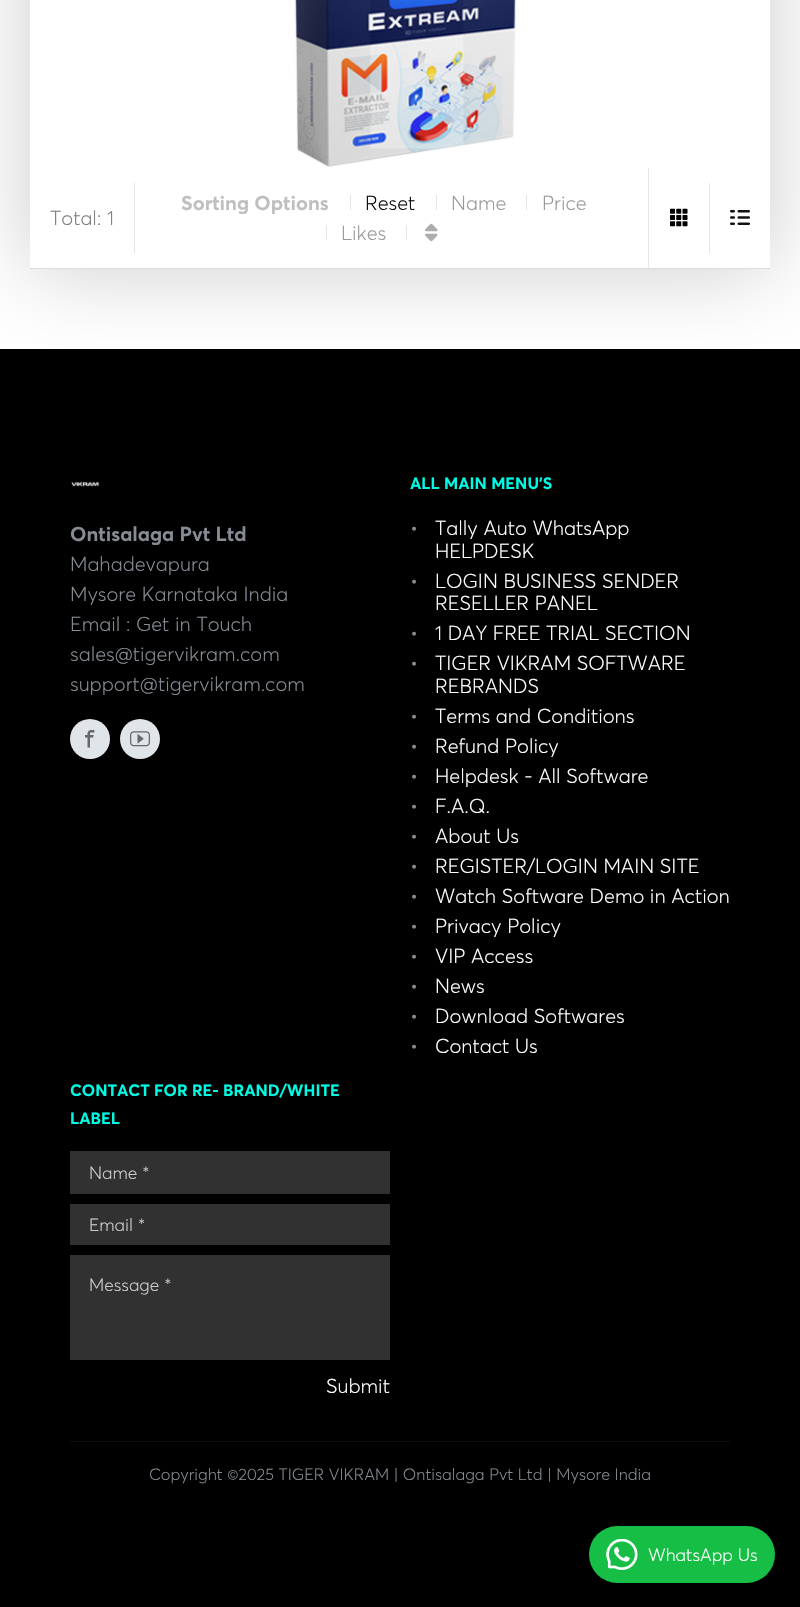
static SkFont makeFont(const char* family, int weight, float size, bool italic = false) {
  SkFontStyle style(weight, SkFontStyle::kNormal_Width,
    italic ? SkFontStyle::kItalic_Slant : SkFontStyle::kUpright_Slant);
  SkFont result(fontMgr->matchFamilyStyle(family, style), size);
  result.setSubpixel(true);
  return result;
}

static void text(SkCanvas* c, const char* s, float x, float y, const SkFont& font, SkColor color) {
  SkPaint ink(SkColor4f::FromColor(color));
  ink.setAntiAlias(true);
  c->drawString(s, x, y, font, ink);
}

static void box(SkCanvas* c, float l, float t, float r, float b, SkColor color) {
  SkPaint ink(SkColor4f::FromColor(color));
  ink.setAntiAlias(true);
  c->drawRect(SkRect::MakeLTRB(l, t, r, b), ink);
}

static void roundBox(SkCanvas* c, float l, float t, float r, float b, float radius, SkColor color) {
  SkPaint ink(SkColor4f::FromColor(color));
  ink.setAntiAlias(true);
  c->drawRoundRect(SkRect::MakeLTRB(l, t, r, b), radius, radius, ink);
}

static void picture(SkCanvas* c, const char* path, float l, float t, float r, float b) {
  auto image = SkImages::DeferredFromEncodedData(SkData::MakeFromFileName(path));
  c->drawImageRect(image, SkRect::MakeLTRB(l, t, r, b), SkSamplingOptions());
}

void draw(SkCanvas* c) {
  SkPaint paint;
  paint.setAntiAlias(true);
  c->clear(0xffffffff);
  box(c, 0, 349, 800, 1607, 0xff000000);
  paint.setColor(0x33000000);
  paint.setMaskFilter(SkMaskFilter::MakeBlur(kNormal_SkBlurStyle, 40.5f));
  c->drawRect(SkRect::MakeLTRB(30, -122, 770, 269), paint);
  paint.setMaskFilter(nullptr);
  box(c, 30, 0, 770, 268, 0xffffffff);
  picture(c, "img_01.png", 294, 0, 516, 167);
  box(c, 134, 183, 135, 253, 0xffe6e6e6);
  SkFont face1 = makeFont("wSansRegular", 400, 20);
  text(c, "Total: 1", 50, 225, face1, 0xff7e7e7e);
  box(c, 648, 168, 649, 268, 0xffe6e6e6);
  SkFont face2 = makeFont("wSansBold", 700, 20);
  text(c, "Sorting Options", 181, 210, face2, 0xffbfbfbf);
  box(c, 350, 195, 351, 210, 0xffe6e6e6);
  text(c, "Reset", 365, 210, face1, 0xff0d0d0d);
  box(c, 436, 195, 437, 210, 0xffe6e6e6);
  text(c, "Name", 451, 210, face1, 0xff999999);
  box(c, 526, 195, 527, 210, 0xffe6e6e6);
  text(c, "Price", 542, 210, face1, 0xff999999);
  box(c, 326, 225, 327, 240, 0xffe6e6e6);
  text(c, "Likes", 341, 240, face1, 0xff999999);
  box(c, 406, 225, 407, 240, 0xffe6e6e6);
  picture(c, "img_02.png", 425, 223, 438, 242);
  box(c, 709, 183, 710, 253, 0xffe6e6e6);
  picture(c, "img_03.png", 670, 208, 688, 227);
  picture(c, "img_04.png", 730, 210, 750, 225);
  box(c, 30, 268, 770, 269, 0xffdddddd);
  picture(c, "img_05.png", 71, 481, 100, 487);
  text(c, "Ontisalaga Pvt Ltd", 70, 541, face2, 0xff878c94);
  text(c, "Mahadevapura", 70, 571, face1, 0xff878c94);
  text(c, "Mysore Karnataka India", 70, 601, face1, 0xff878c94);
  text(c, "Email : Get in Touch", 70, 631, face1, 0xff878c94);
  text(c, "sales@tigervikram.com", 70, 661, face1, 0xff878c94);
  text(c, "support@tigervikram.com", 70, 691, face1, 0xff878c94);
  paint.setColor(0xffdfe5e8);
  c->drawCircle(90, 739, 20, paint);
  picture(c, "img_06.png", 85, 730, 95, 748);
  c->drawCircle(140, 739, 20, paint);
  picture(c, "img_07.png", 130, 731, 150, 747);
  SkFont face3 = makeFont("wSansBold", 700, 16.25f);
  text(c, "ALL MAIN MENU'S", 410, 489, face3, 0xff00fbe4);
  text(c, "•", 410, 535, face1, 0xff878c94);
  text(c, "Tally Auto WhatsApp", 435, 535, face1, 0xffffffff);
  text(c, "HELPDESK", 435, 558, face1, 0xffffffff);
  text(c, "•", 410, 588, face1, 0xff878c94);
  text(c, "LOGIN BUSINESS SENDER", 435, 588, face1, 0xffffffff);
  text(c, "RESELLER PANEL", 435, 610, face1, 0xffffffff);
  text(c, "•", 410, 640, face1, 0xff878c94);
  text(c, "1 DAY FREE TRIAL SECTION", 435, 640, face1, 0xffffffff);
  text(c, "•", 410, 670, face1, 0xff878c94);
  text(c, "TIGER VIKRAM SOFTWARE", 435, 670, face1, 0xffffffff);
  text(c, "REBRANDS", 435, 693, face1, 0xffffffff);
  text(c, "•", 410, 723, face1, 0xff878c94);
  text(c, "Terms and Conditions", 435, 723, face1, 0xffffffff);
  text(c, "•", 410, 753, face1, 0xff878c94);
  text(c, "Refund Policy", 435, 753, face1, 0xffffffff);
  text(c, "•", 410, 783, face1, 0xff878c94);
  text(c, "Helpdesk - All Software", 435, 783, face1, 0xffffffff);
  text(c, "•", 410, 813, face1, 0xff878c94);
  text(c, "F.A.Q.", 435, 813, face1, 0xffffffff);
  text(c, "•", 410, 843, face1, 0xff878c94);
  text(c, "About Us", 435, 843, face1, 0xffffffff);
  text(c, "•", 410, 873, face1, 0xff878c94);
  text(c, "REGISTER/LOGIN MAIN SITE", 435, 873, face1, 0xffffffff);
  text(c, "•", 410, 903, face1, 0xff878c94);
  text(c, "Watch Software Demo in Action", 435, 903, face1, 0xffffffff);
  text(c, "•", 410, 933, face1, 0xff878c94);
  text(c, "Privacy Policy", 435, 933, face1, 0xffffffff);
  text(c, "•", 410, 963, face1, 0xff878c94);
  text(c, "VIP Access", 435, 963, face1, 0xffffffff);
  text(c, "•", 410, 993, face1, 0xff878c94);
  text(c, "News", 435, 993, face1, 0xffffffff);
  text(c, "•", 410, 1023, face1, 0xff878c94);
  text(c, "Download Softwares", 435, 1023, face1, 0xffffffff);
  text(c, "•", 410, 1053, face1, 0xff878c94);
  text(c, "Contact Us", 435, 1053, face1, 0xffffffff);
  text(c, "CONTACT FOR RE- BRAND/WHITE", 70, 1096, face3, 0xff00fbe4);
  text(c, "LABEL", 70, 1124, face3, 0xff00fbe4);
  box(c, 70, 1151, 390, 1194, 0xff313131);
  SkFont face4 = makeFont("wSansRegular", 400, 17.5f);
  text(c, "Name *", 89, 1179, face4, 0xffcccccc);
  box(c, 70, 1204, 390, 1245, 0xff313131);
  text(c, "Email *", 89, 1231, face4, 0xffcccccc);
  box(c, 70, 1255, 390, 1360, 0xff313131);
  text(c, "Message *", 89, 1291, face4, 0xffcccccc);
  text(c, "Submit", 326, 1393, face1, 0xffffffff);
  box(c, 70, 1441, 730, 1442, 0xff0d0d0d);
  SkFont face5 = makeFont("wSansRegular", 400, 16.25f);
  text(c, "Copyright ©2025 TIGER VIKRAM | Ontisalaga Pvt Ltd | Mysore India", 149, 1480, face5, 0xff878c94);
  roundBox(c, 589, 1526, 775, 1583, 28.5f, 0xff16be45);
  picture(c, "img_08.png", 606, 1539, 638, 1570);
  text(c, "WhatsApp Us", 648, 1561, face4, 0xffffffff);
}
